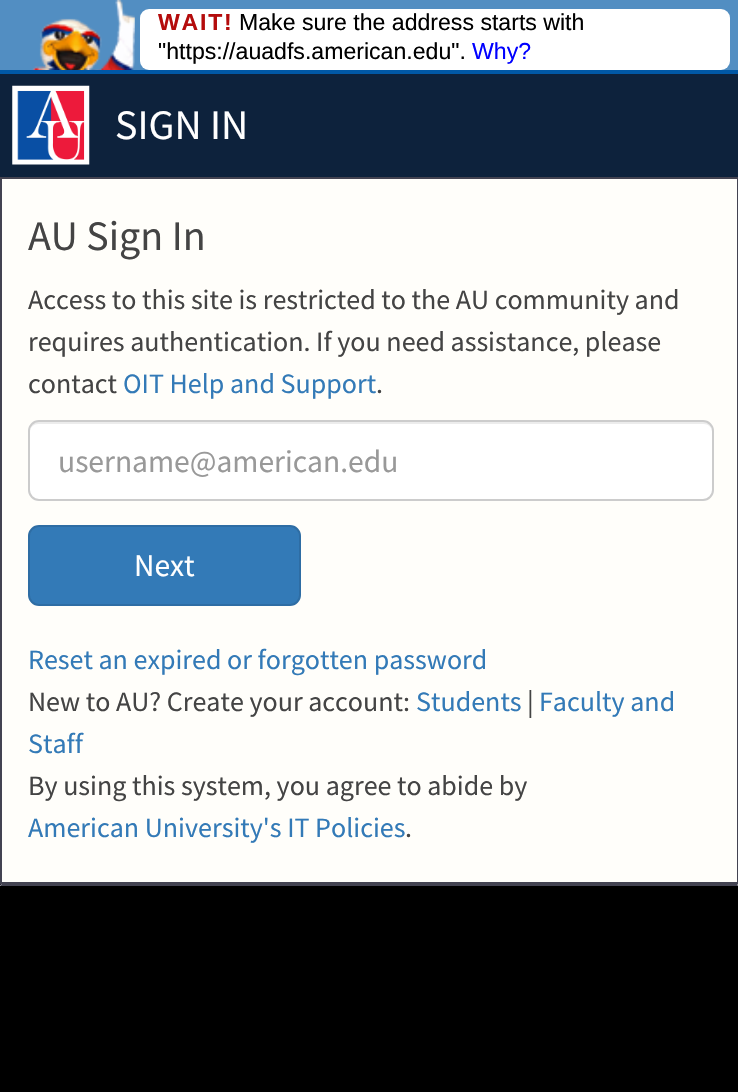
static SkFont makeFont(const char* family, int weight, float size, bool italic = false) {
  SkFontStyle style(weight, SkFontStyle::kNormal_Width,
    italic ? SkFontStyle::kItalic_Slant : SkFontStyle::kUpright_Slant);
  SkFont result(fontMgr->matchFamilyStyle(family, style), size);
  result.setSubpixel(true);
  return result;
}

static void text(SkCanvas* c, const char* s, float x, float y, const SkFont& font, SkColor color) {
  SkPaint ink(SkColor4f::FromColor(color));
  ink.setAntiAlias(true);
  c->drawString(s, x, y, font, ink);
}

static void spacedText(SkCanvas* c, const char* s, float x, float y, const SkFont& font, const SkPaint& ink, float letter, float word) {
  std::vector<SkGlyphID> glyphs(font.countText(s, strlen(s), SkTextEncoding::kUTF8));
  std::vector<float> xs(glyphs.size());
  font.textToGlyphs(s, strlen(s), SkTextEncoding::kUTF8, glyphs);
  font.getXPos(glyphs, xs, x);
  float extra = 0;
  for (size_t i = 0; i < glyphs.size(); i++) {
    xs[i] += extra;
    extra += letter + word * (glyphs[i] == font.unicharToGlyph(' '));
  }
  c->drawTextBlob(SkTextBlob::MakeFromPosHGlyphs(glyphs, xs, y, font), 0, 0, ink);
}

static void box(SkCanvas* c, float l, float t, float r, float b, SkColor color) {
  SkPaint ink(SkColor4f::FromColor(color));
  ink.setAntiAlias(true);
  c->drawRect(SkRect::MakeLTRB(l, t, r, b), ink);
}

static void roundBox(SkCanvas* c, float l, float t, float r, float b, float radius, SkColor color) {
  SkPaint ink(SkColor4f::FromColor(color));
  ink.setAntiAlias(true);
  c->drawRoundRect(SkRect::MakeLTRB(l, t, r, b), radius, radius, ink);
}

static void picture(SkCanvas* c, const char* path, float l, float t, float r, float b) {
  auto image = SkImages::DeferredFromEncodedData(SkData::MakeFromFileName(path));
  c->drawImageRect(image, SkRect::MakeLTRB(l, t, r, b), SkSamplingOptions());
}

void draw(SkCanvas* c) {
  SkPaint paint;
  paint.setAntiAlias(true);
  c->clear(0xff000000);
  box(c, 0, 0, 738, 70, 0xff528ec2);
  box(c, 0, 70, 738, 74, 0xff0058a6);
  picture(c, "img_01.png", 32, 0, 135, 70);
  roundBox(c, 140, 9, 730, 70, 9, 0xffffffff);
  SkFont face1 = makeFont("Liberation Sans", 700, 23.1f);
  paint.setColor(0xffb40c0c);
  spacedText(c, "WAIT!", 158, 30, face1, paint, 1.75f, 0);
  SkFont face2 = makeFont("Liberation Sans", 400, 23.1f);
  text(c, "Make sure the address starts with", 239, 30, face2, 0xff000000);
  text(c, "\"https://auadfs.american.edu\".", 158, 59, face2, 0xff000000);
  text(c, "Why?", 472, 59, face2, 0xff0000ff);
  box(c, 0, 74, 738, 177, 0xff0d223c);
  picture(c, "img_02.png", 12, 85, 90, 165);
  SkFont face3 = makeFont("Source Sans Pro", 400, 42);
  text(c, "SIGN IN", 115, 139, face3, 0xffffffff);
  paint.setColor(0xfffffefa);
  c->drawRect(SkRect::MakeLTRB(1, 178, 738, 883), paint);
  paint.setStyle(SkPaint::kStroke_Style);
  paint.setStrokeWidth(2);
  paint.setColor(0xff434351);
  c->drawRect(SkRect::MakeLTRB(1, 178, 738, 883), paint);
  text(c, "AU Sign In", 28, 250, face3, 0xff444444);
  SkFont face4 = makeFont("Source Sans Pro", 400, 28);
  text(c, "Access to this site is restricted to the AU community and", 28, 309, face4, 0xff444444);
  text(c, "requires authentication. If you need assistance, please", 28, 351, face4, 0xff444444);
  text(c, "contact", 28, 393, face4, 0xff444444);
  text(c, "OIT Help and Support", 123, 393, face4, 0xff337ab7);
  text(c, ".", 376, 393, face4, 0xff444444);
  roundBox(c, 28, 420, 714, 501, 11, 0xffffffff);
  paint.setStyle(SkPaint::kFill_Style);
  paint.setColor(0xffececec);
  c->drawPath(SkPathBuilder().moveTo(38, 424).lineTo(704, 424).cubicTo(708, 424, 712, 427, 712, 432).cubicTo(712, 427, 709, 422, 703, 422).lineTo(39, 422).cubicTo(33, 422, 30, 427, 30, 432).cubicTo(30, 427, 34, 424, 38, 424).close().detach(), paint);
  paint.setStyle(SkPaint::kStroke_Style);
  paint.setColor(0xffcccccc);
  c->drawRoundRect(SkRect::MakeLTRB(29, 421, 713, 500), 10, 10, paint);
  SkFont face5 = makeFont("Source Sans Pro", 400, 31.5f);
  text(c, "username@american.edu", 58, 472, face5, 0xff999999);
  paint.setStyle(SkPaint::kFill_Style);
  paint.setColor(0xff337ab7);
  c->drawRoundRect(SkRect::MakeLTRB(29, 526, 300, 605), 10, 10, paint);
  paint.setStyle(SkPaint::kStroke_Style);
  paint.setColor(0xff2e6da4);
  c->drawRoundRect(SkRect::MakeLTRB(29, 526, 300, 605), 10, 10, paint);
  text(c, "Next", 134, 576, face5, 0xffffffff);
  text(c, "Reset an expired or forgotten password", 28, 669, face4, 0xff337ab7);
  text(c, "New to AU? Create your account:", 28, 711, face4, 0xff444444);
  text(c, "Students", 416, 711, face4, 0xff337ab7);
  text(c, "|", 527, 711, face4, 0xff444444);
  text(c, "Faculty and", 539, 711, face4, 0xff337ab7);
  text(c, "Staff", 28, 753, face4, 0xff337ab7);
  text(c, "By using this system, you agree to abide by", 28, 795, face4, 0xff444444);
  text(c, "American University's IT Policies", 28, 837, face4, 0xff337ab7);
  text(c, ".", 405, 837, face4, 0xff444444);
  box(c, 0, 884, 738, 886, 0xfffffefa);
  paint.setStyle(SkPaint::kFill_Style);
  paint.setColor(0xff434351);
  c->drawPath(SkPathBuilder().moveTo(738.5f, 884).lineTo(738.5f, 885.5f).lineTo(737, 884).close().detach(), paint);
  c->drawPath(SkPathBuilder().moveTo(738, 886).lineTo(0, 886).lineTo(2, 884).lineTo(737, 884).close().detach(), paint);
  paint.setColor(0xff222233);
  c->drawPath(SkPathBuilder().moveTo(0, 885.5f).lineTo(0, 884).lineTo(2, 884).close().detach(), paint);
}
